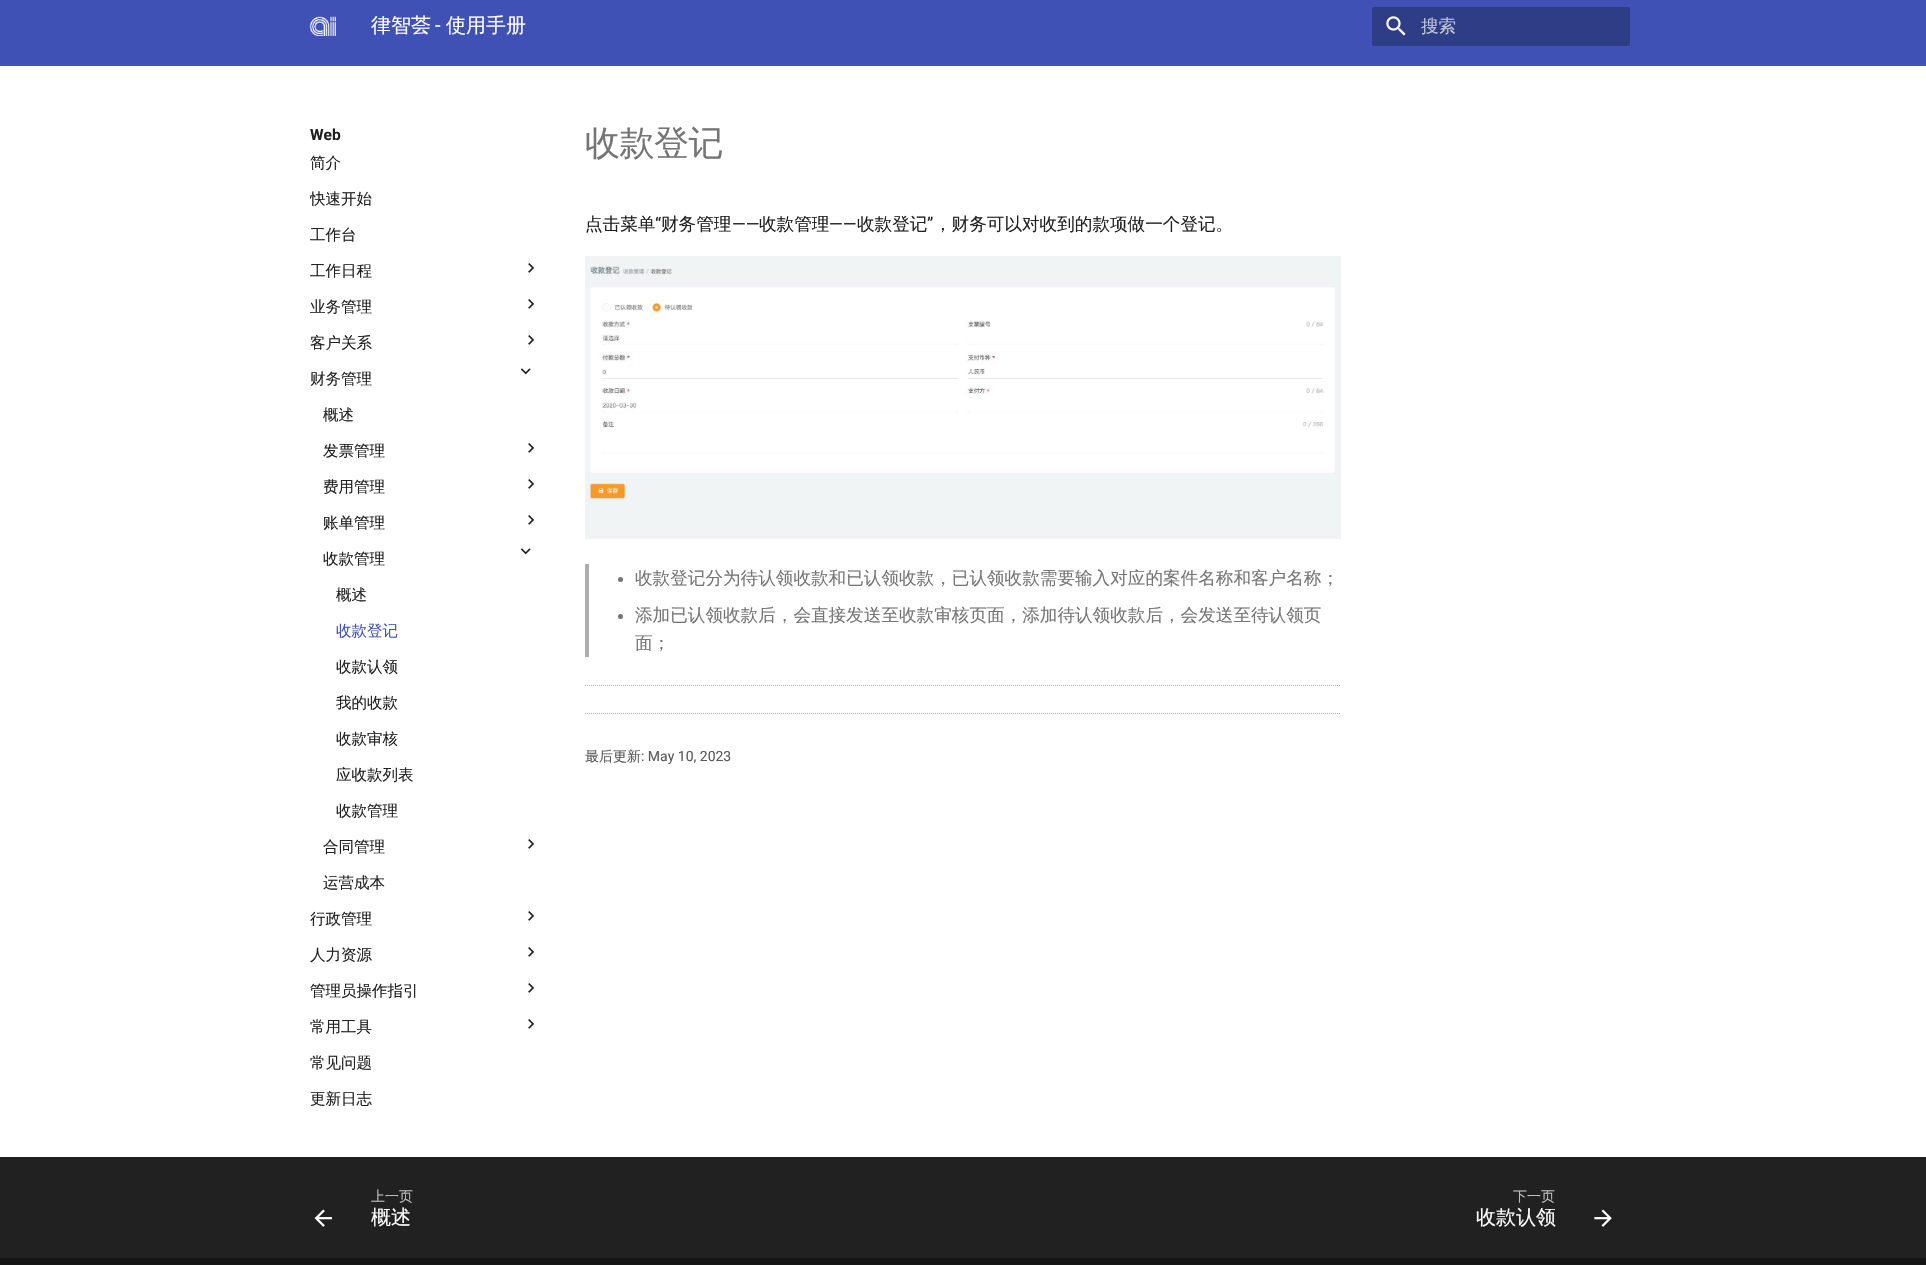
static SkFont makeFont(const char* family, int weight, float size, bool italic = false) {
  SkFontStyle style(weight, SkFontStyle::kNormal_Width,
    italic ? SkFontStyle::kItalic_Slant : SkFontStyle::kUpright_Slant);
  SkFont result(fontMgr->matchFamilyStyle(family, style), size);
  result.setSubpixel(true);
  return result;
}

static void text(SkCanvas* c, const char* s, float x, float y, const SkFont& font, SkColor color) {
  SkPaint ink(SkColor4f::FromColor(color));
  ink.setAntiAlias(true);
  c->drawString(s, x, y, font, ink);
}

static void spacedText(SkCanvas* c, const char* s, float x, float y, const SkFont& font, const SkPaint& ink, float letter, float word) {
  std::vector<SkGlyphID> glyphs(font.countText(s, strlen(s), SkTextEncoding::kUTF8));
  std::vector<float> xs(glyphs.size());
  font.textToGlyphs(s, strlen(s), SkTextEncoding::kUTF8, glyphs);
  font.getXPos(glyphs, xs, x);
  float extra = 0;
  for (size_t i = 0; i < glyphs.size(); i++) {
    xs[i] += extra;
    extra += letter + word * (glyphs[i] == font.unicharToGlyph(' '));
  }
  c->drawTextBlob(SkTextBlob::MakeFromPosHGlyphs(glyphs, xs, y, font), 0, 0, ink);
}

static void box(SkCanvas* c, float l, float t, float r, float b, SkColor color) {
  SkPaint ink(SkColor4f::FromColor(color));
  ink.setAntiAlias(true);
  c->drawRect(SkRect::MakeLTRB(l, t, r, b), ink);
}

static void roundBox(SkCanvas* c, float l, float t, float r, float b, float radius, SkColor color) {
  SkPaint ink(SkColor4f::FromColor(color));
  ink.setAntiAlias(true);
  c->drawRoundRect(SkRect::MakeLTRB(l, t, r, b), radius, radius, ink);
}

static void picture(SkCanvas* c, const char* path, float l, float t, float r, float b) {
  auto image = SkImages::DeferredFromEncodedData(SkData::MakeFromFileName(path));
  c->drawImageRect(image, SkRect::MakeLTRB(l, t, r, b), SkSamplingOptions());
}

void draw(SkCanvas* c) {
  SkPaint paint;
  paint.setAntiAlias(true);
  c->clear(0xffffffff);
  box(c, 0, 0, 1926, 66, 0xff4051b5);
  picture(c, "img_01.png", 309, 16, 336, 36);
  SkFont face1 = makeFont("WenQuanYi Zen Hei", 500, 20);
  text(c, "律智荟", 371, 32, face1, 0xffffffff);
  SkFont face2 = makeFont("Roboto", 400, 20);
  text(c, "-", 435, 32, face2, 0xffffffff);
  text(c, "使用手册", 446, 32, face1, 0xffffffff);
  roundBox(c, 1372, 7, 1630, 46, 2, 0xff2f3c86);
  picture(c, "img_02.png", 1386, 16, 1406, 36);
  SkFont face3 = makeFont("WenQuanYi Zen Hei", 500, 17.6f);
  text(c, "搜索", 1421, 32, face3, 0xffc1c5db);
  SkFont face4 = makeFont("Roboto", 700, 15.5f);
  text(c, "Web", 310, 140, face4, 0xff212121);
  SkFont face5 = makeFont("WenQuanYi Zen Hei", 500, 15.5f);
  text(c, "简介", 310, 168, face5, 0xff212121);
  c->save();
  c->clipRect(SkRect::MakeLTRB(310, 181, 541, 217));
  text(c, "快速开始", 310, 204, face5, 0xff212121);
  c->restore();
  text(c, "工作台", 310, 240, face5, 0xff212121);
  text(c, "工作日程", 310, 276, face5, 0xff212121);
  picture(c, "img_03.png", 528, 263, 535, 273);
  text(c, "业务管理", 310, 312, face5, 0xff212121);
  picture(c, "img_03.png", 528, 299, 535, 309);
  text(c, "客户关系", 310, 348, face5, 0xff212121);
  picture(c, "img_03.png", 528, 335, 535, 345);
  text(c, "财务管理", 310, 384, face5, 0xff212121);
  picture(c, "img_04.png", 520, 368, 531, 375);
  text(c, "概述", 323, 420, face5, 0xff212121);
  text(c, "发票管理", 323, 456, face5, 0xff212121);
  picture(c, "img_03.png", 528, 443, 535, 453);
  text(c, "费用管理", 323, 492, face5, 0xff212121);
  picture(c, "img_03.png", 528, 479, 535, 489);
  text(c, "账单管理", 323, 528, face5, 0xff212121);
  picture(c, "img_03.png", 528, 515, 535, 525);
  text(c, "收款管理", 323, 564, face5, 0xff212121);
  picture(c, "img_04.png", 520, 548, 531, 555);
  text(c, "概述", 336, 600, face5, 0xff212121);
  text(c, "收款登记", 336, 636, face5, 0xff4051b5);
  text(c, "收款认领", 336, 672, face5, 0xff212121);
  text(c, "我的收款", 336, 708, face5, 0xff212121);
  text(c, "收款审核", 336, 744, face5, 0xff212121);
  text(c, "应收款列表", 336, 780, face5, 0xff212121);
  text(c, "收款管理", 336, 816, face5, 0xff212121);
  text(c, "合同管理", 323, 852, face5, 0xff212121);
  picture(c, "img_03.png", 528, 839, 535, 849);
  text(c, "运营成本", 323, 888, face5, 0xff212121);
  text(c, "行政管理", 310, 924, face5, 0xff212121);
  picture(c, "img_03.png", 528, 911, 535, 921);
  text(c, "人力资源", 310, 960, face5, 0xff212121);
  picture(c, "img_03.png", 528, 947, 535, 957);
  text(c, "管理员操作指引", 310, 996, face5, 0xff212121);
  picture(c, "img_03.png", 528, 983, 535, 993);
  text(c, "常用工具", 310, 1032, face5, 0xff212121);
  picture(c, "img_03.png", 528, 1019, 535, 1029);
  text(c, "常见问题", 310, 1068, face5, 0xff212121);
  text(c, "更新日志", 310, 1104, face5, 0xff212121);
  SkFont face6 = makeFont("WenQuanYi Zen Hei", 500, 35);
  paint.setColor(0xff757575);
  spacedText(c, "收款登记", 585, 155, face6, paint, -0.5f, 0);
  text(c, "点击菜单", 585, 230, face3, 0xff212121);
  SkFont face7 = makeFont("Roboto", 400, 17.6f);
  text(c, "“", 655, 230, face7, 0xff212121);
  text(c, "财务管理", 661, 230, face3, 0xff212121);
  text(c, "收款管理", 759, 230, face3, 0xff212121);
  text(c, "收款登记", 857, 230, face3, 0xff212121);
  text(c, "”", 927, 230, face7, 0xff212121);
  text(c, "，财务可以对收到的款项做一个登记。", 934, 230, face3, 0xff212121);
  text(c, "——", 732, 230, face7, 0xff212121);
  text(c, "——", 829, 230, face7, 0xff212121);
  picture(c, "img_05.png", 585, 256, 1341, 539);
  box(c, 585, 564, 589, 657, 0xffadadad);
  c->drawCircle(620.5f, 579.5f, 2.5f, paint);
  text(c, "收款登记分为待认领收款和已认领收款，已认领收款需要输入对应的案件名称和客户名称；", 635, 584, face3, 0xff757575);
  c->drawCircle(620.5f, 616.5f, 2.5f, paint);
  text(c, "添加已认领收款后，会直接发送至收款审核页面，添加待认领收款后，会发送至待认领页", 635, 621, face3, 0xff757575);
  text(c, "面；", 635, 649, face3, 0xff757575);
  paint.setStyle(SkPaint::kStroke_Style);
  paint.setStrokeWidth(1);
  paint.setColor(0xffadadad);
  paint.setPathEffect(SkDashPathEffect::Make({{1, 1}}, 0));
  c->drawPath(SkPathBuilder().moveTo(585, 685.5f).lineTo(1341, 685.5f).detach(), paint);
  paint.setPathEffect(nullptr);
  paint.setPathEffect(SkDashPathEffect::Make({{1, 1}}, 0));
  c->drawPath(SkPathBuilder().moveTo(585, 713.5f).lineTo(1341, 713.5f).detach(), paint);
  paint.setPathEffect(nullptr);
  SkFont face8 = makeFont("WenQuanYi Zen Hei", 500, 14);
  text(c, "最后更新", 585, 761, face8, 0xff595959);
  SkFont face9 = makeFont("Roboto", 400, 14);
  text(c, ": May 10, 2023", 641, 761, face9, 0xff595959);
  box(c, 0, 1157, 1926, 1258, 0xff212121);
  picture(c, "img_06.png", 314, 1209, 332, 1227);
  text(c, "上一页", 371, 1201, face8, 0xffbcbcbc);
  text(c, "概述", 371, 1224, face1, 0xffffffff);
  text(c, "下一页", 1513, 1201, face8, 0xffbcbcbc);
  text(c, "收款认领", 1476, 1224, face1, 0xffffffff);
  picture(c, "img_07.png", 1594, 1209, 1612, 1227);
  box(c, 0, 1258, 1926, 1265, 0xff161616);
}
